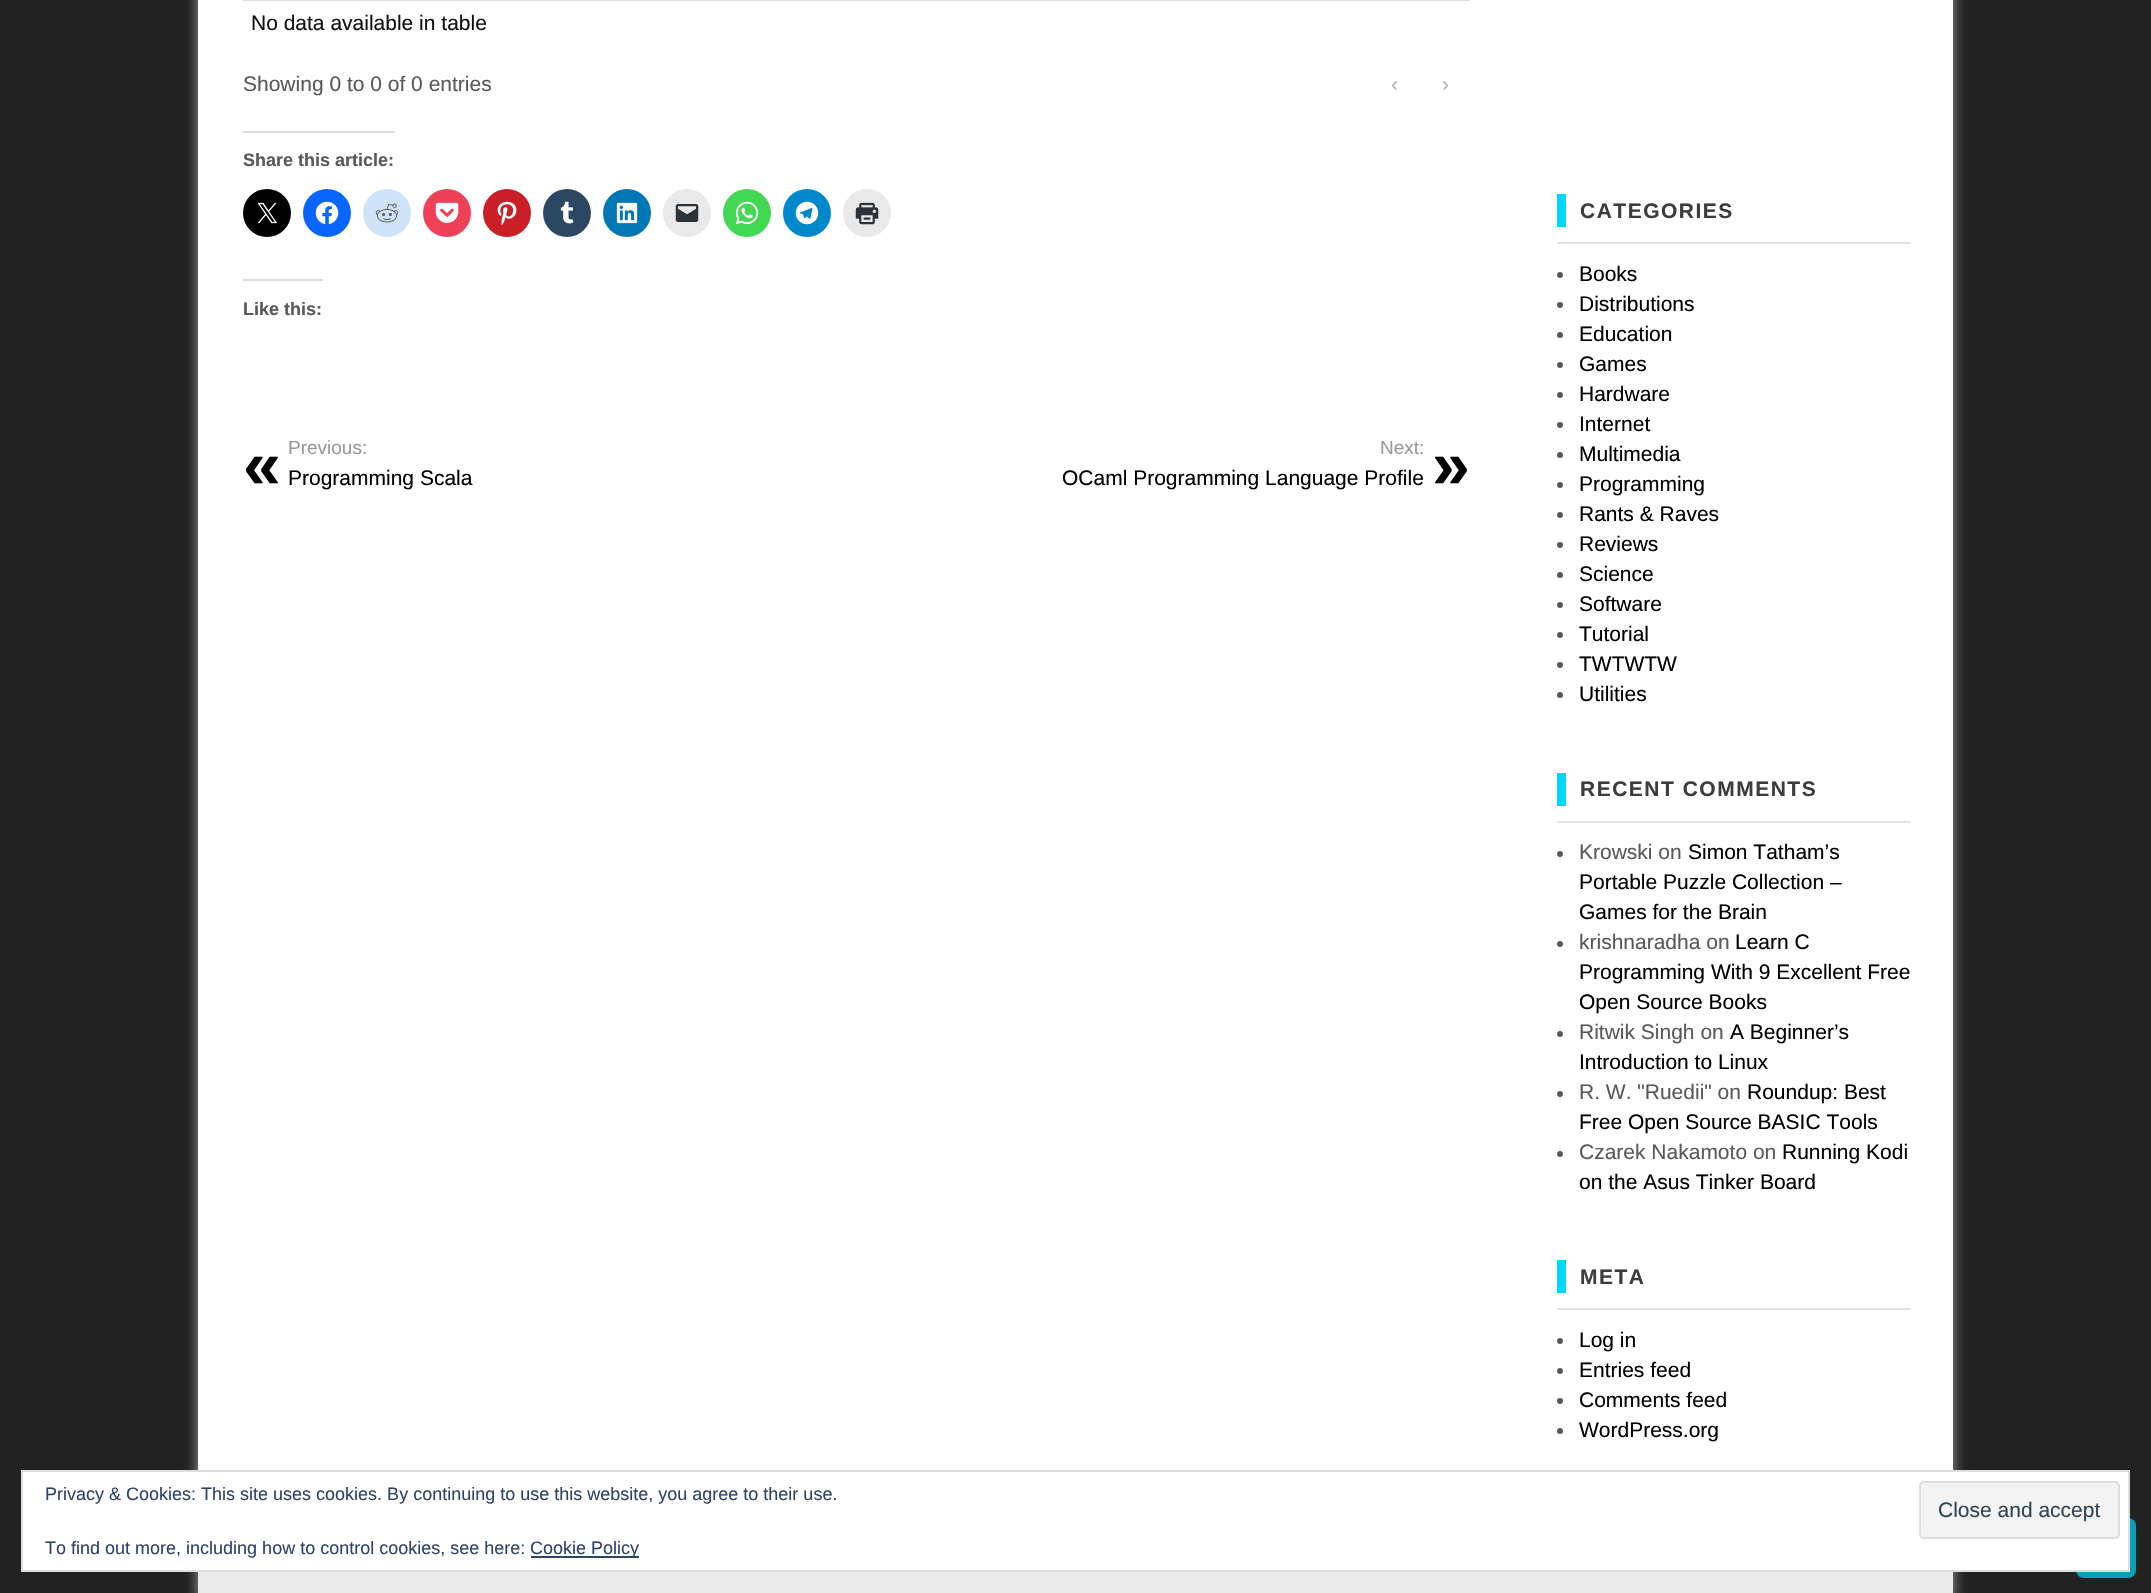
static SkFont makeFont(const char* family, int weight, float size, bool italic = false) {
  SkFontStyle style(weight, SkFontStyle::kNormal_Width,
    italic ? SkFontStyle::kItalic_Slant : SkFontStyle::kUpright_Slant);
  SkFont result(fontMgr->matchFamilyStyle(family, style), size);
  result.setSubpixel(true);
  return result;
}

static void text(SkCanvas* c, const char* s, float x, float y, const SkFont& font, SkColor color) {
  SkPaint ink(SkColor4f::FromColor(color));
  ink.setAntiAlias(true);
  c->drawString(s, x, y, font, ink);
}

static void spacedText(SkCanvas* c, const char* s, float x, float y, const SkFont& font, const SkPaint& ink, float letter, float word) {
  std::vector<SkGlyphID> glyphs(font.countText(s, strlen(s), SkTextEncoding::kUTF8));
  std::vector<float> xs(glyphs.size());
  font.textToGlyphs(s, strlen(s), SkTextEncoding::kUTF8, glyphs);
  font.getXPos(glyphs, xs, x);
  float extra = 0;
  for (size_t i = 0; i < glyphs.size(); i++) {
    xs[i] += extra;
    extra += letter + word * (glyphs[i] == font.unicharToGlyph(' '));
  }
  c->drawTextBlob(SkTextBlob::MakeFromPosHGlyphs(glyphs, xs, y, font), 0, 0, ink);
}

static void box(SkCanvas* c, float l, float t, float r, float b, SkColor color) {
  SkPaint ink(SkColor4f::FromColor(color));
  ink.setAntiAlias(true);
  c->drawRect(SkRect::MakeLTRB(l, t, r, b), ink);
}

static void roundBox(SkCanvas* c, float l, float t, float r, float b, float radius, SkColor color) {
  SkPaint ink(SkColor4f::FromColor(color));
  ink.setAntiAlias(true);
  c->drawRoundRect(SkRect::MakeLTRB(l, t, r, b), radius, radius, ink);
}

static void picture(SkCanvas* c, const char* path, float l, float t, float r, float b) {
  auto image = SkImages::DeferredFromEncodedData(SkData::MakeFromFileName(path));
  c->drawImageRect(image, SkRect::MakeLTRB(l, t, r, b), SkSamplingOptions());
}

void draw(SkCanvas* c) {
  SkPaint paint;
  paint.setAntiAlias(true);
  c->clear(0xff222222);
  paint.setColor(0xffa1a1a1);
  paint.setMaskFilter(SkMaskFilter::MakeBlur(kNormal_SkBlurStyle, 6));
  c->drawRect(SkRect::MakeLTRB(198, -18, 1953, 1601), paint);
  paint.setMaskFilter(nullptr);
  box(c, 198, 0, 1953, 1470, 0xffffffff);
  box(c, 243, 0, 1470, 1, 0xffdddddd);
  SkFont face1 = makeFont("Liberation Sans", 400, 21);
  text(c, "No data available in table", 251, 30, face1, 0xff111111);
  text(c, "Showing 0 to 0 of 0 entries", 243, 91, face1, 0xff595959);
  text(c, "‹", 1391, 91, face1, 0xffb3b3b3);
  text(c, "›", 1442, 91, face1, 0xffb3b3b3);
  box(c, 243, 131, 395, 133, 0xffdcdcde);
  SkFont face2 = makeFont("Liberation Sans", 700, 18);
  text(c, "Share this article:", 243, 166, face2, 0xff595959);
  paint.setColor(0xff000000);
  c->drawCircle(267, 213, 24, paint);
  picture(c, "img_01.png", 257, 202, 278, 224);
  paint.setColor(0xff0866ff);
  c->drawCircle(327, 213, 24, paint);
  picture(c, "img_02.png", 315, 201, 339, 224);
  paint.setColor(0xffcee3f8);
  c->drawCircle(387, 213, 24, paint);
  picture(c, "img_03.png", 375, 203, 399, 223);
  paint.setColor(0xffee4056);
  c->drawCircle(447, 213, 24, paint);
  picture(c, "img_04.png", 435, 202, 459, 223);
  paint.setColor(0xffca1f27);
  c->drawCircle(507, 213, 24, paint);
  picture(c, "img_05.png", 497, 201, 517, 225);
  paint.setColor(0xff2c4762);
  c->drawCircle(567, 213, 24, paint);
  picture(c, "img_06.png", 560, 201, 574, 224);
  paint.setColor(0xff0077b5);
  c->drawCircle(627, 213, 24, paint);
  picture(c, "img_07.png", 616, 202, 638, 224);
  paint.setColor(0xffe9e9e9);
  c->drawCircle(687, 213, 24, paint);
  picture(c, "img_08.png", 675, 204, 699, 222);
  paint.setColor(0xff43d854);
  c->drawCircle(747, 213, 24, paint);
  picture(c, "img_09.png", 735, 201, 759, 225);
  paint.setColor(0xff0088cc);
  c->drawCircle(807, 213, 24, paint);
  picture(c, "img_10.png", 795, 201, 819, 225);
  paint.setColor(0xffe9e9e9);
  c->drawCircle(867, 213, 24, paint);
  picture(c, "img_11.png", 855, 202, 879, 225);
  box(c, 243, 279, 323, 281, 0xffdcdcde);
  text(c, "Like this:", 243, 315, face2, 0xff595959);
  SkFont face3 = makeFont("Liberation Sans", 400, 19);
  text(c, "Previous:", 288, 454, face3, 0xff999999);
  SkFont face4 = makeFont("Liberation Sans", 700, 68);
  text(c, "«", 243, 488, face4, 0xff000000);
  text(c, "Programming Scala", 288, 485, face1, 0xff000000);
  text(c, "Next:", 1380, 454, face3, 0xff999999);
  text(c, "OCaml Programming Language Profile", 1062, 485, face1, 0xff000000);
  text(c, "»", 1432, 488, face4, 0xff000000);
  box(c, 1557, 242, 1911, 244, 0xffe3e3e3);
  box(c, 1557, 194, 1566, 227, 0xff00d6f7);
  SkFont face5 = makeFont("Liberation Sans", 700, 21);
  paint.setColor(0xff3d3d3d);
  spacedText(c, "CATEGORIES", 1580, 218, face5, paint, 1.5f, 0);
  paint.setColor(0xff595959);
  c->drawCircle(1560, 275, 3, paint);
  text(c, "Books", 1579, 281, face1, 0xff000000);
  c->drawCircle(1560, 305, 3, paint);
  text(c, "Distributions", 1579, 311, face1, 0xff000000);
  c->drawCircle(1560, 335, 3, paint);
  text(c, "Education", 1579, 341, face1, 0xff000000);
  c->drawCircle(1560, 365, 3, paint);
  text(c, "Games", 1579, 371, face1, 0xff000000);
  c->drawCircle(1560, 395, 3, paint);
  text(c, "Hardware", 1579, 401, face1, 0xff000000);
  c->drawCircle(1560, 425, 3, paint);
  text(c, "Internet", 1579, 431, face1, 0xff000000);
  c->drawCircle(1560, 455, 3, paint);
  text(c, "Multimedia", 1579, 461, face1, 0xff000000);
  c->drawCircle(1560, 485, 3, paint);
  text(c, "Programming", 1579, 491, face1, 0xff000000);
  c->drawCircle(1560, 515, 3, paint);
  text(c, "Rants & Raves", 1579, 521, face1, 0xff000000);
  c->drawCircle(1560, 545, 3, paint);
  text(c, "Reviews", 1579, 551, face1, 0xff000000);
  c->drawCircle(1560, 575, 3, paint);
  text(c, "Science", 1579, 581, face1, 0xff000000);
  c->drawCircle(1560, 605, 3, paint);
  text(c, "Software", 1579, 611, face1, 0xff000000);
  c->drawCircle(1560, 635, 3, paint);
  text(c, "Tutorial", 1579, 641, face1, 0xff000000);
  c->drawCircle(1560, 665, 3, paint);
  text(c, "TWTWTW", 1579, 671, face1, 0xff000000);
  c->drawCircle(1560, 695, 3, paint);
  text(c, "Utilities", 1579, 701, face1, 0xff000000);
  box(c, 1557, 821, 1911, 823, 0xffe3e3e3);
  box(c, 1557, 773, 1566, 806, 0xff00d6f7);
  paint.setColor(0xff3d3d3d);
  spacedText(c, "RECENT COMMENTS", 1580, 796, face5, paint, 1.5f, 0);
  paint.setColor(0xff595959);
  c->drawCircle(1560, 854, 3, paint);
  text(c, "Krowski on", 1579, 859, face1, 0xff595959);
  text(c, "Simon Tatham’s", 1688, 859, face1, 0xff000000);
  text(c, "Portable Puzzle Collection –", 1579, 889, face1, 0xff000000);
  text(c, "Games for the Brain", 1579, 919, face1, 0xff000000);
  c->drawCircle(1560, 944, 3, paint);
  text(c, "krishnaradha on", 1579, 949, face1, 0xff595959);
  text(c, "Learn C", 1735, 949, face1, 0xff000000);
  text(c, "Programming With 9 Excellent Free", 1579, 979, face1, 0xff000000);
  text(c, "Open Source Books", 1579, 1009, face1, 0xff000000);
  c->drawCircle(1560, 1034, 3, paint);
  text(c, "Ritwik Singh on", 1579, 1039, face1, 0xff595959);
  text(c, "A Beginner’s", 1730, 1039, face1, 0xff000000);
  text(c, "Introduction to Linux", 1579, 1069, face1, 0xff000000);
  c->drawCircle(1560, 1094, 3, paint);
  text(c, "R. W. \"Ruedii\" on", 1579, 1099, face1, 0xff595959);
  text(c, "Roundup: Best", 1747, 1099, face1, 0xff000000);
  text(c, "Free Open Source BASIC Tools", 1579, 1129, face1, 0xff000000);
  c->drawCircle(1560, 1154, 3, paint);
  text(c, "Czarek Nakamoto on", 1579, 1159, face1, 0xff595959);
  text(c, "Running Kodi", 1782, 1159, face1, 0xff000000);
  text(c, "on the Asus Tinker Board", 1579, 1189, face1, 0xff000000);
  box(c, 1557, 1308, 1911, 1310, 0xffe3e3e3);
  box(c, 1557, 1260, 1566, 1293, 0xff00d6f7);
  paint.setColor(0xff3d3d3d);
  spacedText(c, "META", 1580, 1284, face5, paint, 1.5f, 0);
  paint.setColor(0xff595959);
  c->drawCircle(1560, 1341, 3, paint);
  text(c, "Log in", 1579, 1347, face1, 0xff000000);
  c->drawCircle(1560, 1371, 3, paint);
  text(c, "Entries feed", 1579, 1377, face1, 0xff000000);
  c->drawCircle(1560, 1401, 3, paint);
  text(c, "Comments feed", 1579, 1407, face1, 0xff000000);
  c->drawCircle(1560, 1431, 3, paint);
  text(c, "WordPress.org", 1579, 1437, face1, 0xff000000);
  roundBox(c, 2076, 1518, 2136, 1578, 8, 0xff0aa0b7);
  box(c, 198, 1572, 1953, 1593, 0xffeaeaea);
  paint.setColor(0xffffffff);
  c->drawRect(SkRect::MakeLTRB(22, 1471, 2129, 1571), paint);
  paint.setStyle(SkPaint::kStroke_Style);
  paint.setStrokeWidth(2);
  paint.setColor(0xffdedede);
  c->drawRect(SkRect::MakeLTRB(22, 1471, 2129, 1571), paint);
  SkFont face6 = makeFont("Liberation Sans", 400, 18);
  text(c, "Privacy & Cookies: This site uses cookies. By continuing to use this website, you agree to their use.", 45, 1500, face6, 0xff2e4467);
  paint.setStyle(SkPaint::kFill_Style);
  paint.setColor(0xfff3f3f3);
  c->drawRoundRect(SkRect::MakeLTRB(1920, 1482, 2119, 1538), 4, 4, paint);
  paint.setStyle(SkPaint::kStroke_Style);
  paint.setColor(0xffdedede);
  c->drawRoundRect(SkRect::MakeLTRB(1920, 1482, 2119, 1538), 4, 4, paint);
  text(c, "Close and accept", 1938, 1517, face1, 0xff2e4453);
  text(c, "To find out more, including how to control cookies, see here:", 45, 1554, face6, 0xff2e4467);
  box(c, 531, 1556, 639, 1558, 0xff2e4467);
  text(c, "Cookie Policy", 530, 1554, face6, 0xff2e4467);
}
